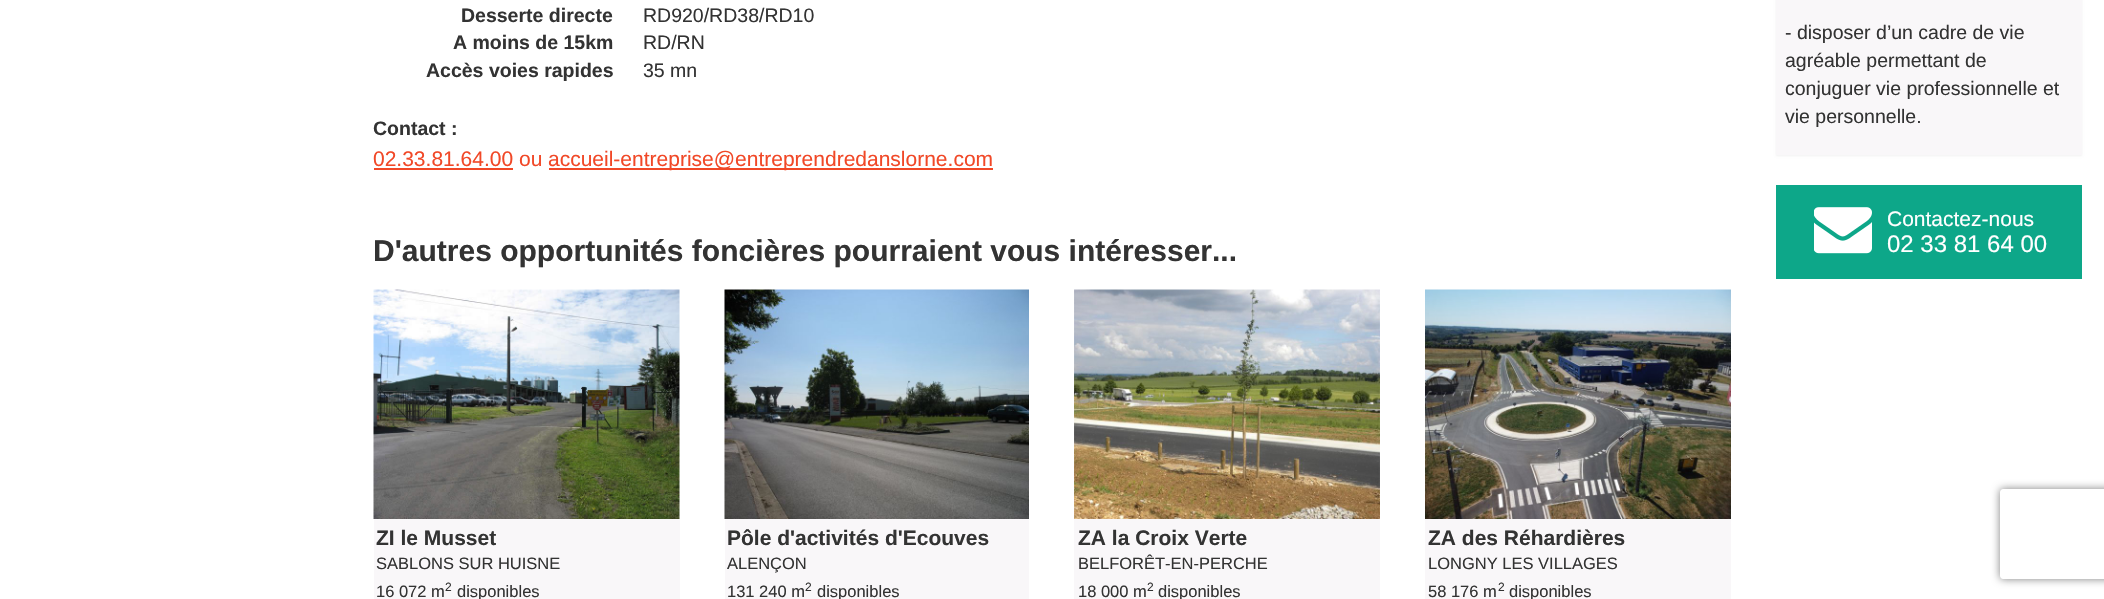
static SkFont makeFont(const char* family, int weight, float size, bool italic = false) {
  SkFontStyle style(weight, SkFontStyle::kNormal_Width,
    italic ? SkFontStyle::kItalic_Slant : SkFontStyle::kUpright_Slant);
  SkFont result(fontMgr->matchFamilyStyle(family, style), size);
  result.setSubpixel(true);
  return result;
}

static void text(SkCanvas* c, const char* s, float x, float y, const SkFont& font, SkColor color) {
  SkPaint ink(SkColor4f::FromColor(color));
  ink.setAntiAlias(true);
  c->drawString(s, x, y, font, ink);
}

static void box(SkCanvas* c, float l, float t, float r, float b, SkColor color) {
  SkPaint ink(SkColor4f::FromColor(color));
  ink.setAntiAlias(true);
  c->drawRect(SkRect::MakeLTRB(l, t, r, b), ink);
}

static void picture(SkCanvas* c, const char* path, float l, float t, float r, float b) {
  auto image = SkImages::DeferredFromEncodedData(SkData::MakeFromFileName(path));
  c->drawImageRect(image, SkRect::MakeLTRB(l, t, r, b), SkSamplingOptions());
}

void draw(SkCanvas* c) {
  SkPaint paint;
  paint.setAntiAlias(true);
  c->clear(0xffffffff);
  SkFont face1 = makeFont("Liberation Sans", 700, 19.5f);
  text(c, "Desserte directe", 461, 22, face1, 0xff333333);
  SkFont face2 = makeFont("Liberation Sans", 400, 19.5f);
  text(c, "RD920/RD38/RD10", 643, 22, face2, 0xff333333);
  text(c, "A moins de 15km", 453, 49, face1, 0xff333333);
  text(c, "RD/RN", 643, 49, face2, 0xff333333);
  text(c, "Accès voies rapides", 426, 77, face1, 0xff333333);
  text(c, "35 mn", 643, 77, face2, 0xff333333);
  text(c, "Contact :", 373, 135, face1, 0xff333333);
  SkFont face3 = makeFont("Liberation Sans", 400, 21);
  text(c, "02.33.81.64.00 ou", 373, 166, face3, 0xfff14827);
  box(c, 374, 168, 513, 170, 0xfff14827);
  box(c, 549, 168, 993, 170, 0xfff14827);
  text(c, "accueil-entreprise@entreprendredanslorne.com", 548, 166, face3, 0xfff14827);
  SkFont face4 = makeFont("Liberation Sans", 700, 30);
  text(c, "D'autres opportunités foncières pourraient vous intéresser...", 373, 261, face4, 0xff333333);
  picture(c, "img_01.png", 373, 289, 680, 519);
  box(c, 374, 519, 680, 599, 0xfff9f7f9);
  SkFont face5 = makeFont("Liberation Sans", 700, 21);
  text(c, "ZI le Musset", 376, 545, face5, 0xff333333);
  SkFont face6 = makeFont("Liberation Sans", 400, 16.5f);
  text(c, "SABLONS SUR HUISNE", 376, 569, face6, 0xff333333);
  text(c, "16 072 m", 376, 597, face6, 0xff333333);
  SkFont face7 = makeFont("Liberation Sans", 400, 12);
  text(c, "2", 445, 591, face7, 0xff333333);
  text(c, "disponibles", 457, 597, face6, 0xff333333);
  picture(c, "img_02.png", 724, 289, 1029, 519);
  box(c, 725, 519, 1029, 599, 0xfff9f7f9);
  text(c, "Pôle d'activités d'Ecouves", 727, 545, face5, 0xff333333);
  text(c, "ALENÇON", 727, 569, face6, 0xff333333);
  text(c, "131 240 m", 727, 597, face6, 0xff333333);
  text(c, "2", 805, 591, face7, 0xff333333);
  text(c, "disponibles", 817, 597, face6, 0xff333333);
  picture(c, "img_03.png", 1074, 289, 1380, 519);
  box(c, 1074, 519, 1380, 599, 0xfff9f7f9);
  text(c, "ZA la Croix Verte", 1078, 545, face5, 0xff333333);
  text(c, "BELFORÊT-EN-PERCHE", 1078, 569, face6, 0xff333333);
  text(c, "18 000 m", 1078, 597, face6, 0xff333333);
  text(c, "2", 1147, 591, face7, 0xff333333);
  text(c, "disponibles", 1158, 597, face6, 0xff333333);
  picture(c, "img_04.png", 1425, 289, 1731, 519);
  box(c, 1425, 519, 1731, 599, 0xfff9f7f9);
  text(c, "ZA des Réhardières", 1428, 545, face5, 0xff333333);
  text(c, "LONGNY LES VILLAGES", 1428, 569, face6, 0xff333333);
  text(c, "58 176 m", 1428, 597, face6, 0xff333333);
  text(c, "2", 1498, 591, face7, 0xff333333);
  text(c, "disponibles", 1509, 597, face6, 0xff333333);
  paint.setColor(0x0d000000);
  paint.setMaskFilter(SkMaskFilter::MakeBlur(kNormal_SkBlurStyle, 1));
  c->drawRect(SkRect::MakeLTRB(1776, -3, 2082, 156), paint);
  paint.setMaskFilter(nullptr);
  box(c, 1776, 0, 2082, 155, 0xfff9f7f9);
  text(c, "- disposer d’un cadre de vie", 1785, 39, face2, 0xff333333);
  text(c, "agréable permettant de", 1785, 67, face2, 0xff333333);
  text(c, "conjuguer vie professionnelle et", 1785, 95, face2, 0xff333333);
  text(c, "vie personnelle.", 1785, 123, face2, 0xff333333);
  box(c, 1776, 185, 2082, 279, 0xff0da789);
  picture(c, "img_05.png", 1814, 207, 1872, 254);
  text(c, "Contactez-nous", 1887, 226, face3, 0xffffffff);
  SkFont face8 = makeFont("Liberation Sans", 400, 24);
  text(c, "02 33 81 64 00", 1887, 252, face8, 0xffffffff);
  c->save();
  c->clipPath(SkPathBuilder(SkPathFillType::kEvenOdd).moveTo(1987, 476).lineTo(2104, 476).lineTo(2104, 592).lineTo(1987, 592).close().moveTo(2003, 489).lineTo(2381, 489).cubicTo(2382.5f, 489, 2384, 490.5f, 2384, 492).lineTo(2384, 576).cubicTo(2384, 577.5f, 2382.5f, 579, 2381, 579).lineTo(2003, 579).cubicTo(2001.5f, 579, 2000, 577.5f, 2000, 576).lineTo(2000, 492).cubicTo(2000, 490.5f, 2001.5f, 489, 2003, 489).close().detach(), true);
  paint.setColor(0xff808080);
  paint.setMaskFilter(SkMaskFilter::MakeBlur(kNormal_SkBlurStyle, 4));
  c->drawRoundRect(SkRect::MakeLTRB(2000, 489, 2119, 579), 3, 3, paint);
  paint.setMaskFilter(nullptr);
  c->restore();
}
